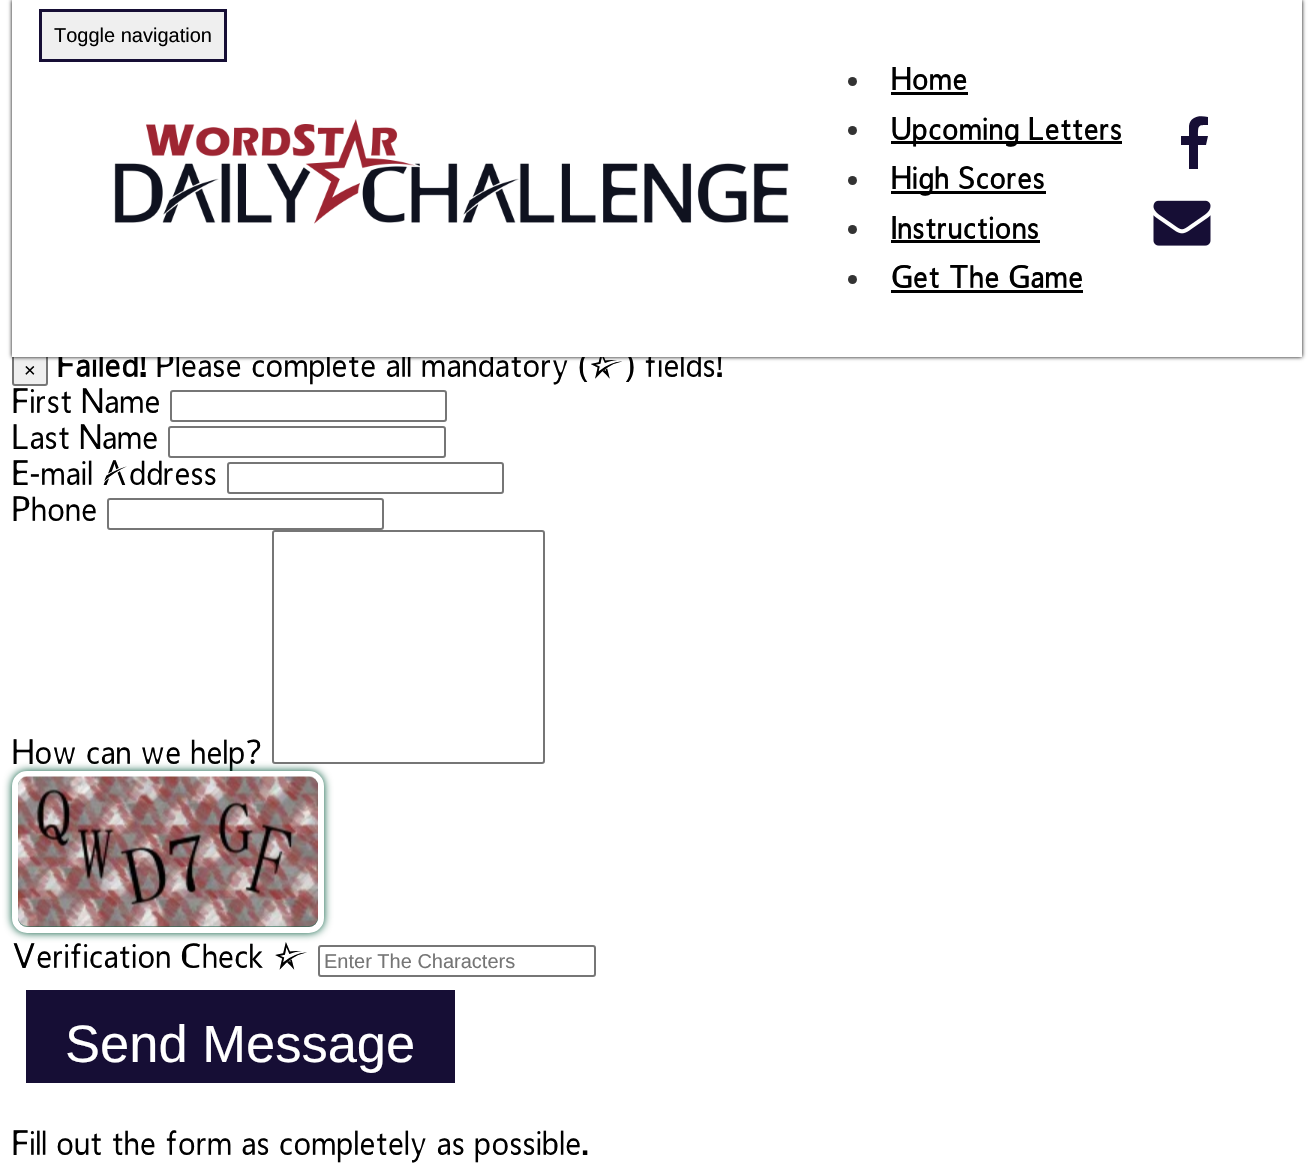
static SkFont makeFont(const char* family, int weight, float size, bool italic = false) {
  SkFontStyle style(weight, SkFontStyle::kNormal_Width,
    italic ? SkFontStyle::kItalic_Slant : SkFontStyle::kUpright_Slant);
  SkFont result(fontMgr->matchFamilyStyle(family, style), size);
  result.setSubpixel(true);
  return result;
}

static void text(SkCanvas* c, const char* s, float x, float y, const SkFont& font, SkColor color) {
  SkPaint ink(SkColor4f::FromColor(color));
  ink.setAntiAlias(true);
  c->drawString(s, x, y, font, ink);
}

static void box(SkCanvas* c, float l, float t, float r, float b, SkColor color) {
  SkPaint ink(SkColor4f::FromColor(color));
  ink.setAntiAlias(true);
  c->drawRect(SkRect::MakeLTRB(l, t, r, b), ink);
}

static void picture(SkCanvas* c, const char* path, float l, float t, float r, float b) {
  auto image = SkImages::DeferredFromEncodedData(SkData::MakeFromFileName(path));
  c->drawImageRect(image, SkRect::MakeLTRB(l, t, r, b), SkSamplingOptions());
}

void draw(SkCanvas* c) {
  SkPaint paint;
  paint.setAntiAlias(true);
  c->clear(0xffffffff);
  paint.setColor(0xffefefef);
  c->drawRoundRect(SkRect::MakeLTRB(13, 355, 47, 385), 2, 2, paint);
  paint.setStyle(SkPaint::kStroke_Style);
  paint.setStrokeWidth(2);
  paint.setColor(0xff767676);
  c->drawRoundRect(SkRect::MakeLTRB(13, 355, 47, 385), 2, 2, paint);
  paint.setStyle(SkPaint::kFill_Style);
  paint.setColor(0xff000000);
  paint.setMaskFilter(SkMaskFilter::MakeBlur(kNormal_SkBlurStyle, 2));
  c->drawRect(SkRect::MakeLTRB(12, 0, 1302, 357), paint);
  paint.setMaskFilter(nullptr);
  SkFont face1 = makeFont("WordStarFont", 700, 33);
  text(c, "Failed!", 57, 377, face1, 0xff000000);
  SkFont face2 = makeFont("WordStarFont", 400, 33);
  text(c, "Please complete all mandatory (*) fields!", 156, 377, face2, 0xff000000);
  box(c, 12, 0, 1302, 357, 0xffffffff);
  paint.setColor(0xffefefef);
  c->drawRect(SkRect::MakeLTRB(40.5f, 10.5f, 225.5f, 60.5f), paint);
  paint.setStyle(SkPaint::kStroke_Style);
  paint.setStrokeWidth(3);
  paint.setColor(0xff160e35);
  c->drawRect(SkRect::MakeLTRB(40.5f, 10.5f, 225.5f, 60.5f), paint);
  SkFont face3 = makeFont("Liberation Sans", 400, 20);
  text(c, "Toggle navigation", 54, 42, face3, 0xff000000);
  paint.setStyle(SkPaint::kFill_Style);
  c->drawPath(SkPathBuilder().moveTo(1208, 117).lineTo(1208, 125).cubicTo(1198, 125, 1198, 125, 1198, 136).lineTo(1208, 136).lineTo(1206, 145).lineTo(1198, 145).lineTo(1198, 169).lineTo(1189, 169).lineTo(1189, 145).lineTo(1181, 145).lineTo(1181, 136).lineTo(1189, 136).lineTo(1189, 126).cubicTo(1190, 116, 1200, 115, 1208, 117).close().detach(), paint);
  picture(c, "img_01.png", 1153, 200, 1211, 246);
  picture(c, "img_02.png", 114, 119, 789, 224);
  paint.setColor(0xff333333);
  c->drawCircle(852.5f, 81.5f, 4.5f, paint);
  SkFont face4 = makeFont("WordStarFont", 700, 30);
  text(c, "Home", 891, 90, face4, 0xff000000);
  box(c, 891, 92, 968, 95, 0xff000000);
  c->drawCircle(852.5f, 130.5f, 4.5f, paint);
  box(c, 891, 141, 1122, 144, 0xff000000);
  text(c, "Upcoming Letters", 891, 140, face4, 0xff000000);
  c->drawCircle(852.5f, 180.5f, 4.5f, paint);
  box(c, 891, 191, 1046, 194, 0xff000000);
  text(c, "High Scores", 891, 189, face4, 0xff000000);
  c->drawCircle(852.5f, 229.5f, 4.5f, paint);
  text(c, "Instructions", 891, 239, face4, 0xff000000);
  box(c, 891, 240, 1040, 243, 0xff000000);
  c->drawCircle(852.5f, 279.5f, 4.5f, paint);
  text(c, "Get The Game", 891, 288, face4, 0xff000000);
  box(c, 891, 290, 1083, 293, 0xff000000);
  text(c, "×", 24, 377, face3, 0xff000000);
  text(c, "First Name", 12, 413, face2, 0xff000000);
  paint.setStyle(SkPaint::kStroke_Style);
  paint.setStrokeWidth(2);
  paint.setColor(0xff767676);
  c->drawRoundRect(SkRect::MakeLTRB(171, 391, 446, 421), 2, 2, paint);
  text(c, "Last Name", 12, 449, face2, 0xff000000);
  c->drawRoundRect(SkRect::MakeLTRB(169, 427, 445, 457), 2, 2, paint);
  text(c, "E-mail Address", 12, 485, face2, 0xff000000);
  c->drawRoundRect(SkRect::MakeLTRB(228, 463, 503, 493), 2, 2, paint);
  text(c, "Phone", 12, 521, face2, 0xff000000);
  c->drawRoundRect(SkRect::MakeLTRB(108, 499, 383, 529), 2, 2, paint);
  text(c, "How can we help?", 12, 764, face2, 0xff000000);
  paint.setStyle(SkPaint::kFill_Style);
  paint.setColor(0xff00573a);
  paint.setMaskFilter(SkMaskFilter::MakeBlur(kNormal_SkBlurStyle, 4));
  c->drawRoundRect(SkRect::MakeLTRB(12, 771, 324, 933), 15, 15, paint);
  paint.setMaskFilter(nullptr);
  paint.setColor(0xffffffff);
  c->drawRoundRect(SkRect::MakeLTRB(273, 531, 544, 763), 2, 2, paint);
  paint.setStyle(SkPaint::kStroke_Style);
  paint.setColor(0xff767676);
  c->drawRoundRect(SkRect::MakeLTRB(273, 531, 544, 763), 2, 2, paint);
  paint.setStrokeWidth(6);
  paint.setColor(0xffffffff);
  c->drawRoundRect(SkRect::MakeLTRB(15, 774, 321, 930), 12, 12, paint);
  picture(c, "img_03.png", 18, 776, 318, 927);
  text(c, "Verification Check *", 12, 968, face2, 0xff000000);
  paint.setStrokeWidth(2);
  paint.setColor(0xff767676);
  c->drawRoundRect(SkRect::MakeLTRB(319, 946, 595, 976), 2, 2, paint);
  text(c, "Enter The Characters", 324, 968, face3, 0xff757575);
  box(c, 26, 990, 455, 1083, 0xff160e35);
  SkFont face5 = makeFont("Liberation Sans", 400, 52.5f);
  text(c, "Send Message", 65, 1062, face5, 0xffffffff);
  text(c, "Fill out the form as completely as possible.", 12, 1155, face2, 0xff000000);
}
